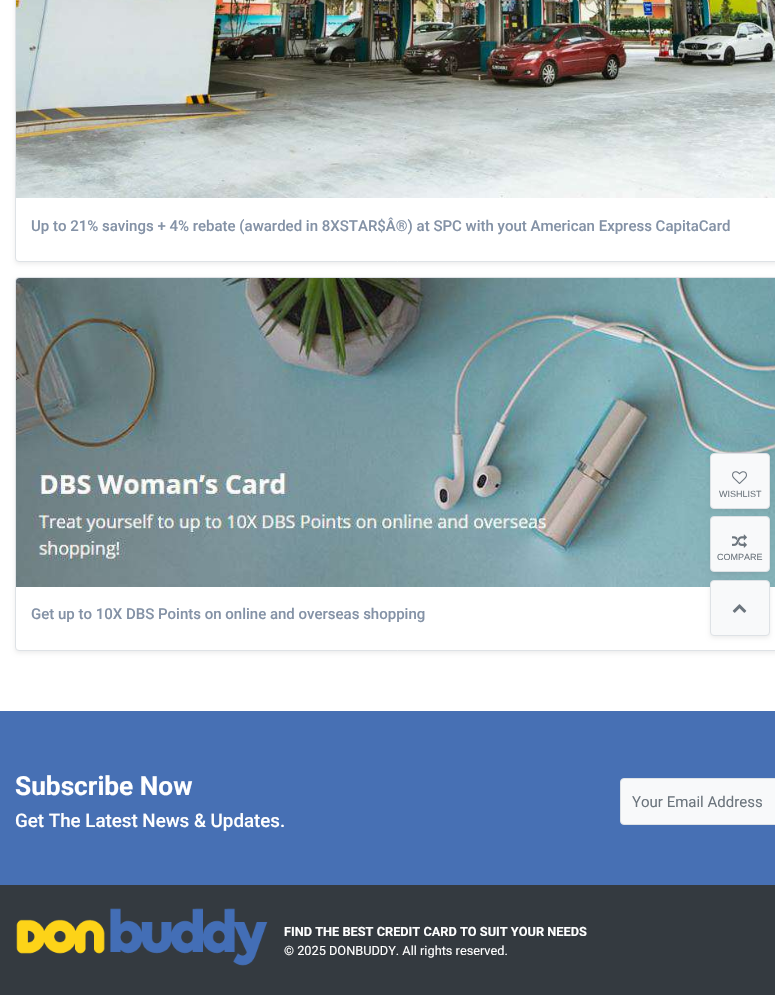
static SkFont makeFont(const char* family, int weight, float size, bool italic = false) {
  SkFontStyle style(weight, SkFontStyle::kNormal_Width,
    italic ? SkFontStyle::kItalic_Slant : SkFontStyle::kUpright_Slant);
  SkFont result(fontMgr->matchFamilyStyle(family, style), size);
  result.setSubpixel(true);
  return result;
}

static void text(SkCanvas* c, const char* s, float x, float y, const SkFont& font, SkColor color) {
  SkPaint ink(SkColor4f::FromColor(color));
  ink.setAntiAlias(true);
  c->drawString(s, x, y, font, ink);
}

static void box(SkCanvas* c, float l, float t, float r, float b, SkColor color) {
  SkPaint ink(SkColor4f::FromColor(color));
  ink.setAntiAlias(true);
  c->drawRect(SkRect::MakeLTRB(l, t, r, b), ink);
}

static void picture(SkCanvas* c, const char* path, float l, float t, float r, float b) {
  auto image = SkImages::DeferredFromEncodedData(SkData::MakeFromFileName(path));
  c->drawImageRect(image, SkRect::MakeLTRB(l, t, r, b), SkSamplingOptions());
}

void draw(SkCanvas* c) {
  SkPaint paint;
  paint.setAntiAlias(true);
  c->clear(0xffffffff);
  paint.setColor(0x12000000);
  paint.setMaskFilter(SkMaskFilter::MakeBlur(kNormal_SkBlurStyle, 2));
  c->drawRoundRect(SkRect::MakeLTRB(15, -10, 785, 264), 4, 4, paint);
  paint.setMaskFilter(nullptr);
  paint.setColor(0xffffffff);
  c->drawRoundRect(SkRect::MakeLTRB(15.5f, -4.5f, 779.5f, 261.5f), 3.5f, 3.5f, paint);
  paint.setStyle(SkPaint::kStroke_Style);
  paint.setStrokeWidth(1);
  paint.setColor(0xffdee2e6);
  c->drawRoundRect(SkRect::MakeLTRB(15.5f, -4.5f, 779.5f, 261.5f), 3.5f, 3.5f, paint);
  picture(c, "img_01.png", 16, 0, 775, 198);
  SkFont face1 = makeFont("Roboto", 500, 15);
  text(c, "Up to 21% savings + 4% rebate (awarded in 8XSTAR$Â®) at SPC with yout American Express CapitaCard", 31, 231, face1, 0xff8492a6);
  paint.setStyle(SkPaint::kFill_Style);
  paint.setColor(0x12000000);
  paint.setMaskFilter(SkMaskFilter::MakeBlur(kNormal_SkBlurStyle, 2));
  c->drawRoundRect(SkRect::MakeLTRB(15, 279, 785, 653), 4, 4, paint);
  paint.setMaskFilter(nullptr);
  paint.setColor(0xffffffff);
  c->drawRoundRect(SkRect::MakeLTRB(15.5f, 277.5f, 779.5f, 650.5f), 3.5f, 3.5f, paint);
  paint.setStyle(SkPaint::kStroke_Style);
  paint.setColor(0xffdee2e6);
  c->drawRoundRect(SkRect::MakeLTRB(15.5f, 277.5f, 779.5f, 650.5f), 3.5f, 3.5f, paint);
  box(c, 16, 278, 20, 282, 0x08000000);
  picture(c, "img_02.png", 16, 278, 775, 587);
  text(c, "Get up to 10X DBS Points on online and overseas shopping", 31, 619, face1, 0xff8492a6);
  paint.setStyle(SkPaint::kFill_Style);
  paint.setColor(0x12000000);
  paint.setMaskFilter(SkMaskFilter::MakeBlur(kNormal_SkBlurStyle, 2));
  c->drawRoundRect(SkRect::MakeLTRB(710, 455, 770, 511), 4, 4, paint);
  paint.setMaskFilter(nullptr);
  paint.setColor(0xfff8f9fa);
  c->drawRoundRect(SkRect::MakeLTRB(710.5f, 453.5f, 769.5f, 508.5f), 3.5f, 3.5f, paint);
  paint.setStyle(SkPaint::kStroke_Style);
  paint.setColor(0xffdee2e6);
  c->drawRoundRect(SkRect::MakeLTRB(710.5f, 453.5f, 769.5f, 508.5f), 3.5f, 3.5f, paint);
  picture(c, "img_03.png", 732, 471, 747, 484);
  SkFont face2 = makeFont("Liberation Sans", 400, 9);
  text(c, "WISHLIST", 719, 497, face2, 0xff6c757d);
  paint.setStyle(SkPaint::kFill_Style);
  paint.setColor(0x12000000);
  paint.setMaskFilter(SkMaskFilter::MakeBlur(kNormal_SkBlurStyle, 2));
  c->drawRoundRect(SkRect::MakeLTRB(710, 518, 770, 574), 4, 4, paint);
  paint.setMaskFilter(nullptr);
  paint.setColor(0xfff8f9fa);
  c->drawRoundRect(SkRect::MakeLTRB(710.5f, 516.5f, 769.5f, 571.5f), 3.5f, 3.5f, paint);
  paint.setStyle(SkPaint::kStroke_Style);
  paint.setColor(0xffdee2e6);
  c->drawRoundRect(SkRect::MakeLTRB(710.5f, 516.5f, 769.5f, 571.5f), 3.5f, 3.5f, paint);
  picture(c, "img_04.png", 732, 534, 747, 548);
  text(c, "COMPARE", 717, 560, face2, 0xff6c757d);
  paint.setStyle(SkPaint::kFill_Style);
  paint.setColor(0x12000000);
  paint.setMaskFilter(SkMaskFilter::MakeBlur(kNormal_SkBlurStyle, 2));
  c->drawRoundRect(SkRect::MakeLTRB(710, 582, 770, 638), 4, 4, paint);
  paint.setMaskFilter(nullptr);
  paint.setColor(0xfff8f9fa);
  c->drawRoundRect(SkRect::MakeLTRB(710.5f, 580.5f, 769.5f, 635.5f), 3.5f, 3.5f, paint);
  paint.setStyle(SkPaint::kStroke_Style);
  paint.setColor(0xffdee2e6);
  c->drawRoundRect(SkRect::MakeLTRB(710.5f, 580.5f, 769.5f, 635.5f), 3.5f, 3.5f, paint);
  picture(c, "img_05.png", 732, 604, 747, 613);
  box(c, 0, 711, 775, 885, 0xff4770b4);
  SkFont face3 = makeFont("Roboto", 700, 26.25f);
  text(c, "Subscribe Now", 15, 795, face3, 0xffffffff);
  SkFont face4 = makeFont("Roboto", 500, 18.75f);
  text(c, "Get The Latest News & Updates.", 15, 827, face4, 0xffffffff);
  paint.setStyle(SkPaint::kFill_Style);
  paint.setColor(0xfff8f9fa);
  c->drawRoundRect(SkRect::MakeLTRB(620.5f, 778.5f, 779.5f, 824.5f), 3.5f, 3.5f, paint);
  paint.setStyle(SkPaint::kStroke_Style);
  paint.setColor(0xffdee2e6);
  c->drawRoundRect(SkRect::MakeLTRB(620.5f, 778.5f, 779.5f, 824.5f), 3.5f, 3.5f, paint);
  SkFont face5 = makeFont("Roboto", 400, 15);
  text(c, "Your Email Address", 632, 807, face5, 0xff6c757d);
  box(c, 0, 885, 775, 995, 0xff343a40);
  picture(c, "img_06.png", 16, 908, 268, 966);
  SkFont face6 = makeFont("Roboto", 700, 12.75f);
  text(c, "FIND THE BEST CREDIT CARD TO SUIT YOUR NEEDS", 284, 936, face6, 0xffffffff);
  SkFont face7 = makeFont("Roboto", 400, 12.75f);
  text(c, "© 2025 DONBUDDY. All rights reserved.", 284, 955, face7, 0xffffffff);
}
